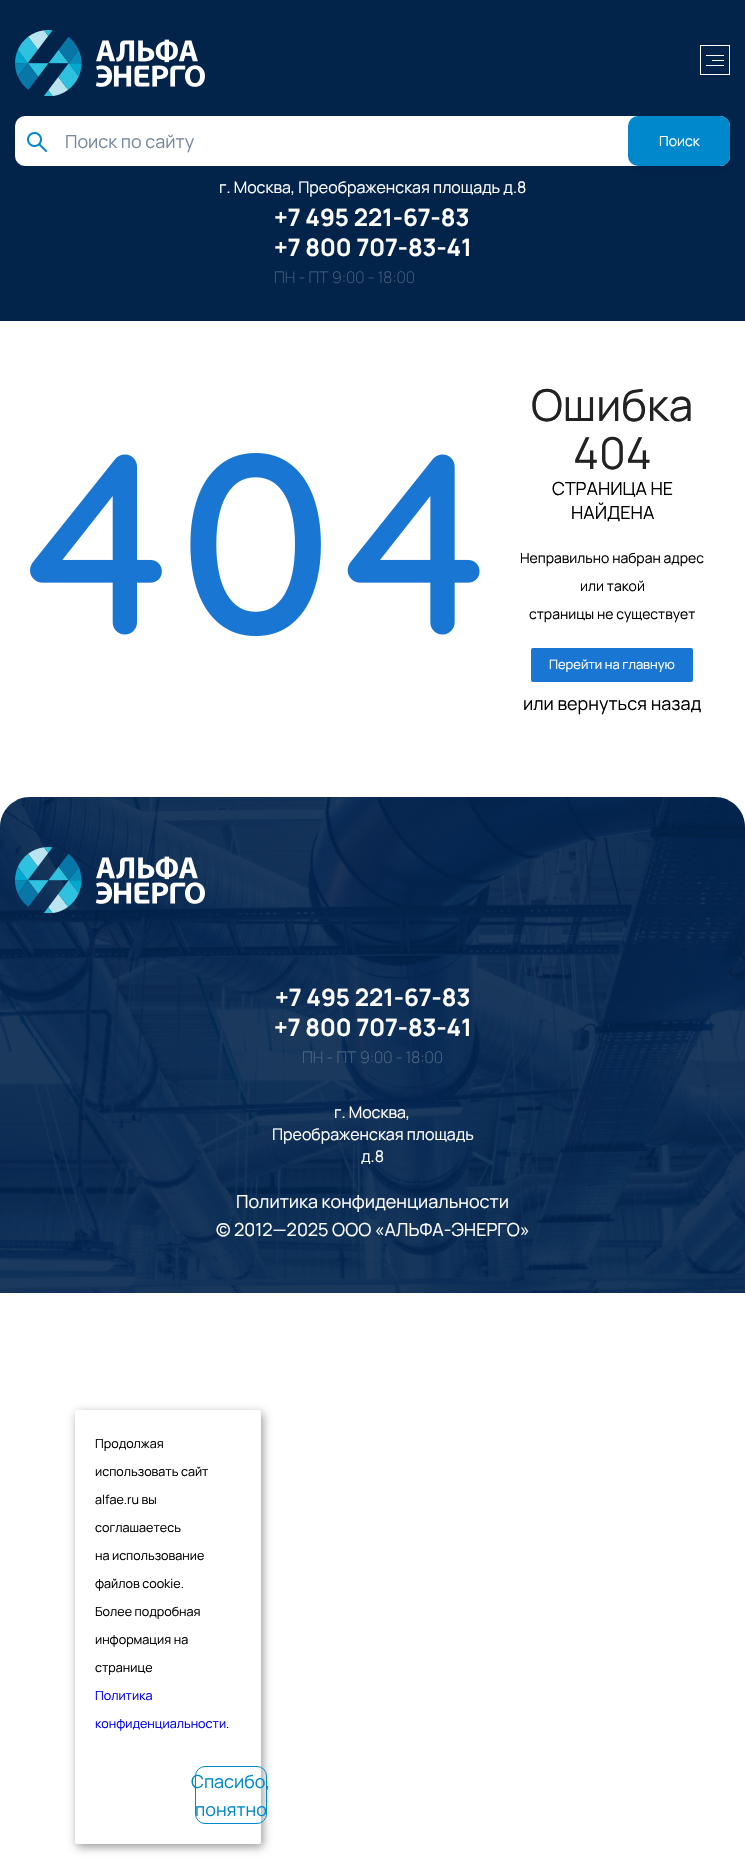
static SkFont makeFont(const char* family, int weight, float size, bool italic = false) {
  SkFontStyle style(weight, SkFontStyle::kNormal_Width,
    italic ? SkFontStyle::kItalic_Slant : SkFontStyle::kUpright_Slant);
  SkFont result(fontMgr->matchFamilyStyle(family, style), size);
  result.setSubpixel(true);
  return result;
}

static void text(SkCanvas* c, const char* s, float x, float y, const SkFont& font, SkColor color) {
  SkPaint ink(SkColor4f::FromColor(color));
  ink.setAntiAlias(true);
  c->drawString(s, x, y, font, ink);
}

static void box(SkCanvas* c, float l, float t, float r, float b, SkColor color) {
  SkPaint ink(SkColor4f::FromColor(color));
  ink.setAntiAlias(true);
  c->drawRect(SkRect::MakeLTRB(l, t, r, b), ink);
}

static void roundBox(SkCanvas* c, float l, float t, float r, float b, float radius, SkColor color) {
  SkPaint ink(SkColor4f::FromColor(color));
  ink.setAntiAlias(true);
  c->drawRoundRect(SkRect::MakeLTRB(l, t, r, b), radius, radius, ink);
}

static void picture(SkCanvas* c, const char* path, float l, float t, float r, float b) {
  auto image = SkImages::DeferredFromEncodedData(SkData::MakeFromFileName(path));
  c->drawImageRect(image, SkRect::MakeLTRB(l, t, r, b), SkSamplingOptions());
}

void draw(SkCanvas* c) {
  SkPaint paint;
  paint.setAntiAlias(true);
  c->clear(0xffffffff);
  box(c, 0, 0, 745, 321, 0xff02234a);
  picture(c, "img_01.png", 15, 30, 205, 96);
  picture(c, "img_02.png", 700, 45, 730, 75);
  roundBox(c, 15, 116, 730, 166, 10, 0xffffffff);
  picture(c, "img_03.png", 27, 132, 47, 152);
  box(c, 20, 165, 725, 166, 0x33ffffff);
  SkFont face1 = makeFont("Manrope", 400, 18);
  text(c, "Поиск по сайту", 65, 148, face1, 0xff798a9e);
  paint.setColor(0x1a000000);
  paint.setMaskFilter(SkMaskFilter::MakeBlur(kNormal_SkBlurStyle, 5));
  c->drawRoundRect(SkRect::MakeLTRB(633, 126, 725, 166), 5, 5, paint);
  paint.setMaskFilter(nullptr);
  roundBox(c, 628, 116, 730, 166, 10, 0xff0088cc);
  SkFont face2 = makeFont("Manrope", 400, 14);
  text(c, "Поиск", 659, 146, face2, 0xffffffff);
  SkFont face3 = makeFont("Manrope", 400, 16);
  text(c, "г. Москва, Преображенская площадь д.8", 219, 193, face3, 0xffffffff);
  SkFont face4 = makeFont("Manrope", 700, 24);
  text(c, "+7 495 221-67-83", 274, 226, face4, 0xffffffff);
  text(c, "+7 800 707-83-41", 274, 256, face4, 0xffffffff);
  SkFont face5 = makeFont("Manrope", 200, 16);
  text(c, "ПН - ПТ 9:00 - 18:00", 274, 283, face5, 0xff4e6580);
  picture(c, "img_04.png", 30, 453, 480, 637);
  SkFont face6 = makeFont("Manrope", 400, 44);
  text(c, "Ошибка", 531, 421, face6, 0xff222222);
  text(c, "404", 573, 469, face6, 0xff222222);
  text(c, "СТРАНИЦА НЕ", 552, 495, face1, 0xff000000);
  text(c, "НАЙДЕНА", 571, 519, face1, 0xff000000);
  text(c, "Неправильно набран адрес", 520, 563, face2, 0xff000000);
  text(c, "или такой", 580, 591, face2, 0xff000000);
  text(c, "страницы не существует", 529, 619, face2, 0xff000000);
  roundBox(c, 531, 648, 693, 682, 2, 0xff1976d2);
  SkFont face7 = makeFont("Manrope", 400, 13);
  text(c, "Перейти на главную", 549, 669, face7, 0xffffffff);
  text(c, "или вернуться назад", 523, 710, face1, 0xff000000);
  paint.setColor(0xff02234a);
  c->drawPath(SkPathBuilder().moveTo(30, 797).lineTo(715, 797).cubicTo(731.5f, 797, 745, 810.5f, 745, 827).lineTo(745, 1293).lineTo(0, 1293).lineTo(0, 827).cubicTo(0, 810.5f, 13.5f, 797, 30, 797).close().detach(), paint);
  picture(c, "img_05.png", 0, 797, 745, 1293);
  picture(c, "img_06.png", 15, 847, 205, 913);
  text(c, "+7 495 221-67-83", 275, 1006, face4, 0xffffffff);
  text(c, "+7 800 707-83-41", 274, 1036, face4, 0xffffffff);
  text(c, "ПН - ПТ 9:00 - 18:00", 302, 1063, face5, 0xff586e8a);
  text(c, "г. Москва,", 334, 1118, face3, 0xffffffff);
  text(c, "Преображенская площадь", 272, 1140, face3, 0xffffffff);
  text(c, "д.8", 361, 1162, face3, 0xffffffff);
  text(c, "Политика конфиденциальности", 236, 1208, face1, 0xffffffff);
  text(c, "© 2012—2025 ООО «АЛЬФА-ЭНЕРГО»", 216, 1236, face1, 0xffffffff);
  paint.setColor(0x66000000);
  paint.setMaskFilter(SkMaskFilter::MakeBlur(kNormal_SkBlurStyle, 5));
  c->drawRoundRect(SkRect::MakeLTRB(77, 1413, 263, 1847), 2, 2, paint);
  paint.setMaskFilter(nullptr);
  roundBox(c, 75, 1410, 261, 1844, 2, 0xffffffff);
  SkFont face8 = makeFont("Manrope", 400, 12.6f);
  text(c, "Продолжая", 95, 1448, face8, 0xff000000);
  text(c, "использовать сайт", 95, 1476, face8, 0xff000000);
  text(c, "alfae.ru вы", 95, 1504, face8, 0xff000000);
  text(c, "соглашаетесь", 95, 1532, face8, 0xff000000);
  text(c, "на использование", 95, 1560, face8, 0xff000000);
  text(c, "файлов cookie.", 95, 1588, face8, 0xff000000);
  text(c, "Более подробная", 95, 1616, face8, 0xff000000);
  text(c, "информация на", 95, 1644, face8, 0xff000000);
  text(c, "странице", 95, 1672, face8, 0xff000000);
  text(c, "Политика", 95, 1700, face8, 0xff0000ee);
  text(c, "конфиденциальности", 95, 1728, face8, 0xff0000ee);
  text(c, ".", 226, 1728, face8, 0xff000000);
  paint.setStyle(SkPaint::kStroke_Style);
  paint.setStrokeWidth(1);
  paint.setColor(0xff0088cc);
  c->drawRoundRect(SkRect::MakeLTRB(195.5f, 1766.5f, 266.5f, 1823.5f), 9.5f, 9.5f, paint);
  text(c, "Спасибо,", 191, 1788, face1, 0xff0088cc);
  text(c, "понятно", 195, 1816, face1, 0xff0088cc);
}
